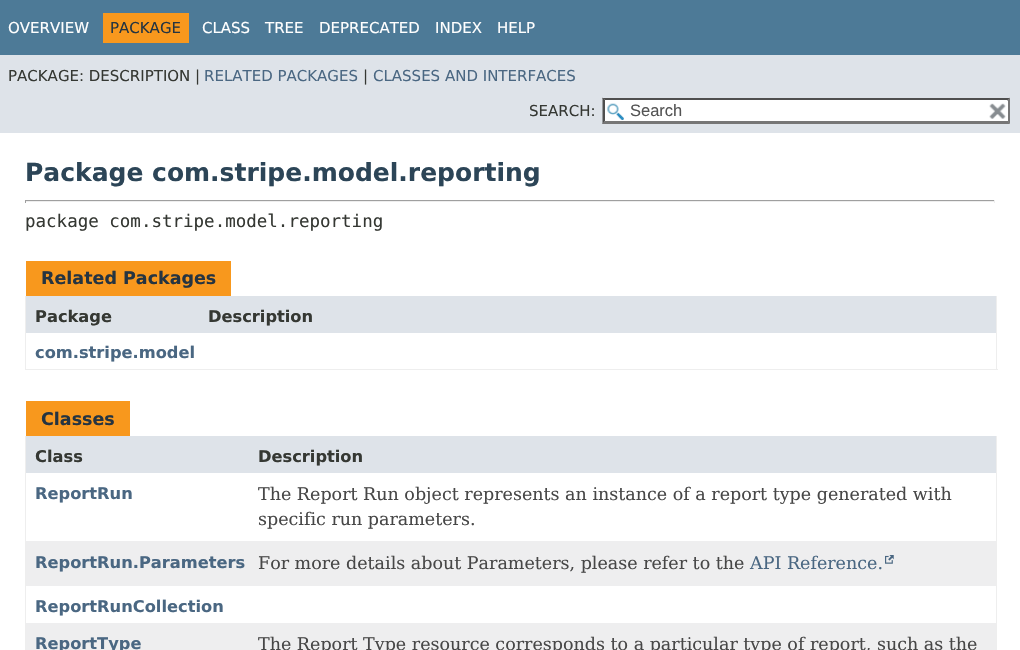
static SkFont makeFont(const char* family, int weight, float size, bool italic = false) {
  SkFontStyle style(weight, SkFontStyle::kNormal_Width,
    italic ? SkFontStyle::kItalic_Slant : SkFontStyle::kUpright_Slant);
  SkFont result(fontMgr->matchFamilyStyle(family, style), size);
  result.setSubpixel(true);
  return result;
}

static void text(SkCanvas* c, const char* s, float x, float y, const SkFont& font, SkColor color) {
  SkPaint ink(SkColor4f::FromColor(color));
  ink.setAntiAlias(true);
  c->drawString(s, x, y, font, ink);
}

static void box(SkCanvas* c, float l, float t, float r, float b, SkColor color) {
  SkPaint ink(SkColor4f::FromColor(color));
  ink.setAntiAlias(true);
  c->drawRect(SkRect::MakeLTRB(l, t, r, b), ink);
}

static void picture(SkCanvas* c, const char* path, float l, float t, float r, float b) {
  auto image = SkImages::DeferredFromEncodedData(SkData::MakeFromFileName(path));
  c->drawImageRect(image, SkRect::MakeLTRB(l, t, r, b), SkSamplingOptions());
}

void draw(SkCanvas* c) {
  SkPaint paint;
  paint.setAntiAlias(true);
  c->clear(0xffffffff);
  box(c, 0, 0, 1020, 55, 0xff4d7a97);
  SkFont face1 = makeFont("DejaVu Sans", 400, 15);
  text(c, "OVERVIEW", 8, 33, face1, 0xffffffff);
  box(c, 103, 13, 189, 43, 0xfff8981d);
  text(c, "PACKAGE", 110, 33, face1, 0xff253441);
  text(c, "CLASS", 202, 33, face1, 0xffffffff);
  text(c, "TREE", 265, 33, face1, 0xffffffff);
  text(c, "DEPRECATED", 319, 33, face1, 0xffffffff);
  text(c, "INDEX", 435, 33, face1, 0xffffffff);
  text(c, "HELP", 497, 33, face1, 0xffffffff);
  box(c, 0, 55, 1020, 133, 0xffdee3e9);
  text(c, "PACKAGE: DESCRIPTION |", 8, 81, face1, 0xff353833);
  text(c, "RELATED PACKAGES", 204, 81, face1, 0xff4a6782);
  text(c, "|", 363, 81, face1, 0xff353833);
  text(c, "CLASSES AND INTERFACES", 373, 81, face1, 0xff4a6782);
  text(c, "SEARCH:", 529, 116, face1, 0xff353833);
  box(c, 603, 98, 1010, 124, 0xffffffff);
  picture(c, "img_01.png", 607, 103, 624, 120);
  paint.setColor(0xff4f4f4f);
  c->drawPath(SkPathBuilder().moveTo(602, 98).lineTo(1010, 98).lineTo(1008, 100).lineTo(605, 100).close().detach(), paint);
  paint.setColor(0xff767676);
  c->drawPath(SkPathBuilder().moveTo(1010, 97.5f).lineTo(1010, 124).lineTo(1007.5f, 121).lineTo(1007.5f, 100).close().detach(), paint);
  c->drawPath(SkPathBuilder().moveTo(1010, 124).lineTo(602, 124).lineTo(605, 121).lineTo(1008, 121).close().detach(), paint);
  paint.setColor(0xff4f4f4f);
  c->drawPath(SkPathBuilder().moveTo(602.5f, 124).lineTo(602.5f, 97.5f).lineTo(605, 100).lineTo(605, 121).close().detach(), paint);
  SkFont face2 = makeFont("Liberation Sans", 400, 16.5f);
  text(c, "Search", 630, 116, face2, 0xff545454);
  box(c, 1007, 101, 1008, 121, 0xffffffff);
  picture(c, "img_02.png", 989, 103, 1006, 119);
  SkFont face3 = makeFont("DejaVu Sans", 700, 25);
  text(c, "Package com.stripe.model.reporting", 25, 181, face3, 0xff2c4557);
  box(c, 25, 200, 995, 201, 0xff9f9f9f);
  box(c, 994, 200, 995, 203, 0xffeeeeee);
  box(c, 25, 201, 995, 202, 0xffeeeeee);
  box(c, 25, 200, 26, 203, 0xff9f9f9f);
  SkFont face4 = makeFont("DejaVu Sans Mono", 400, 17.5f);
  text(c, "package com.stripe.model.reporting", 25, 227, face4, 0xff353833);
  box(c, 26, 261, 231, 296, 0xfff8981d);
  SkFont face5 = makeFont("DejaVu Sans", 700, 17.5f);
  text(c, "Related Packages", 41, 284, face5, 0xff253441);
  box(c, 996, 296, 997, 370, 0xffeeeeee);
  box(c, 25, 369, 998, 370, 0xffeeeeee);
  box(c, 25, 296, 26, 370, 0xffeeeeee);
  box(c, 26, 296, 996, 333, 0xffdee3e9);
  SkFont face6 = makeFont("DejaVu Sans", 700, 16.25f);
  text(c, "Package", 35, 322, face6, 0xff353833);
  text(c, "Description", 208, 322, face6, 0xff353833);
  text(c, "com.stripe.model", 35, 358, face6, 0xff4a6782);
  box(c, 26, 401, 130, 436, 0xfff8981d);
  text(c, "Classes", 41, 425, face5, 0xff253441);
  box(c, 996, 436, 997, 650, 0xffeeeeee);
  box(c, 25, 436, 26, 650, 0xffeeeeee);
  box(c, 26, 436, 996, 473, 0xffdee3e9);
  text(c, "Class", 35, 462, face6, 0xff353833);
  text(c, "Description", 258, 462, face6, 0xff353833);
  text(c, "ReportRun", 35, 499, face6, 0xff4a6782);
  SkFont face7 = makeFont("DejaVu Serif", 400, 17.5f);
  text(c, "The Report Run object represents an instance of a report type generated with", 258, 500, face7, 0xff474747);
  text(c, "specific run parameters.", 258, 525, face7, 0xff474747);
  box(c, 26, 541, 996, 586, 0xffeeeeef);
  text(c, "ReportRun.Parameters", 35, 568, face6, 0xff4a6782);
  text(c, "For more details about Parameters, please refer to the", 258, 569, face7, 0xff474747);
  text(c, "API Reference.", 750, 569, face7, 0xff4a6782);
  picture(c, "img_03.png", 885, 555, 894, 564);
  text(c, "ReportRunCollection", 35, 612, face6, 0xff4a6782);
  box(c, 26, 623, 996, 650, 0xffeeeeef);
  text(c, "ReportType", 35, 649, face6, 0xff4a6782);
  text(c, "The Report Type resource corresponds to a particular type of report, such as the", 258, 650, face7, 0xff474747);
}
